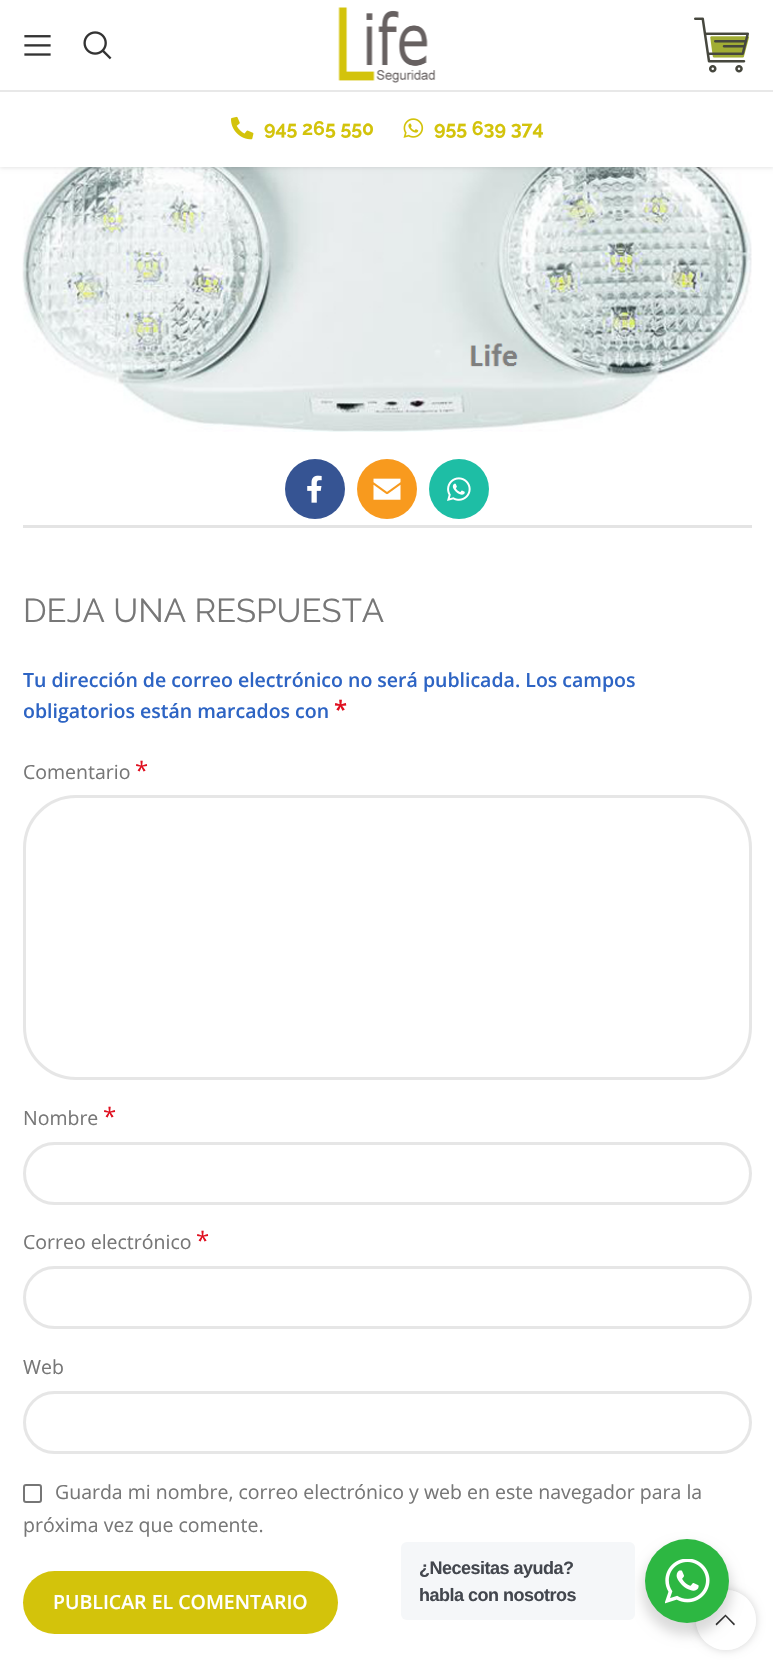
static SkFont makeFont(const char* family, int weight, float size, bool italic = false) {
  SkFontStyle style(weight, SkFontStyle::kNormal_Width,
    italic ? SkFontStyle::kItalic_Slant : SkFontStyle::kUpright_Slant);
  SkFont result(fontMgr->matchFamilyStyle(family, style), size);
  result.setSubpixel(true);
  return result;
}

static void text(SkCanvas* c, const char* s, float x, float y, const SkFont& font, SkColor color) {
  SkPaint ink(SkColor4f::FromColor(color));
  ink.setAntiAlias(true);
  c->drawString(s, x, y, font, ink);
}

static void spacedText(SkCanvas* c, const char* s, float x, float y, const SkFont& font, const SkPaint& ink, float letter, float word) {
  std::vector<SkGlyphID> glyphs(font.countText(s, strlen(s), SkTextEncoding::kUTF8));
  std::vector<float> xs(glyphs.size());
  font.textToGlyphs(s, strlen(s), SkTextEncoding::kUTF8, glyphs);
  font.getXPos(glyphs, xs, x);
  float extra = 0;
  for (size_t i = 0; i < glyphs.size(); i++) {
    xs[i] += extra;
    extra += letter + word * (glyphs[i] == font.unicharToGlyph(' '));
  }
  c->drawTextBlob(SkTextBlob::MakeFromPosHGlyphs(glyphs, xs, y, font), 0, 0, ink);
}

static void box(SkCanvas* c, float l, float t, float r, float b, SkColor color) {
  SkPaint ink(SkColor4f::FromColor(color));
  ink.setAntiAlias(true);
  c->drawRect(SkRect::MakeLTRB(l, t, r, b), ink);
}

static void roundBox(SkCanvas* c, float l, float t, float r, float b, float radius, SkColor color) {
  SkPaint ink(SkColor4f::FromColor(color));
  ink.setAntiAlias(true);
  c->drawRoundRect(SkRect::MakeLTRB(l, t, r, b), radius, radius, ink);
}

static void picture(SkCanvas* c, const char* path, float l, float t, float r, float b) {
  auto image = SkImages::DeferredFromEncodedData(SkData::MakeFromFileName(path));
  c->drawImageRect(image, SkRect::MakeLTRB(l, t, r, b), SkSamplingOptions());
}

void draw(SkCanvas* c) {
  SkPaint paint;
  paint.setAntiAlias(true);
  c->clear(0xffffffff);
  picture(c, "img_07.png", 22, 167, 752, 432);
  paint.setColor(0x1a000000);
  paint.setMaskFilter(SkMaskFilter::MakeBlur(kNormal_SkBlurStyle, 2));
  c->drawRect(SkRect::MakeLTRB(0, 2, 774, 168), paint);
  paint.setMaskFilter(nullptr);
  box(c, 0, 0, 773, 90, 0xffffffff);
  box(c, 0, 90, 773, 92, 0xffe8e8e8);
  picture(c, "img_01.png", 24, 35, 51, 56);
  picture(c, "img_02.png", 83, 31, 112, 60);
  picture(c, "img_03.png", 338, 7, 436, 83);
  picture(c, "img_04.png", 694, 17, 749, 73);
  box(c, 0, 92, 773, 167, 0xffffffff);
  picture(c, "img_05.png", 231, 116, 254, 140);
  SkFont face1 = makeFont("Raleway", 700, 19.5f);
  text(c, "945 265 550", 264, 135, face1, 0xffd3c30b);
  picture(c, "img_06.png", 403, 118, 424, 138);
  text(c, "955 639 374", 434, 135, face1, 0xffd3c30b);
  paint.setColor(0xff365493);
  c->drawCircle(315, 489, 30, paint);
  picture(c, "img_08.png", 307, 475, 322, 503);
  paint.setColor(0xfff89a1e);
  c->drawCircle(387, 489, 30, paint);
  picture(c, "img_09.png", 373, 478, 401, 500);
  paint.setColor(0xff1ebea5);
  c->drawCircle(459, 489, 30, paint);
  picture(c, "img_10.png", 447, 477, 471, 501);
  box(c, 23, 525, 752, 528, 0xffe4e4e4);
  SkFont face2 = makeFont("Raleway", 400, 33);
  text(c, "DEJA UNA RESPUESTA", 23, 622, face2, 0xff777777);
  SkFont face3 = makeFont("Open Sans", 600, 19.5f);
  text(c, "Tu dirección de correo electrónico no será publicada. Los campos", 23, 687, face3, 0xff2d64c4);
  text(c, "obligatorios están marcados con", 23, 718, face3, 0xff2d64c4);
  SkFont face4 = makeFont("Open Sans", 600, 24);
  text(c, "*", 334, 718, face4, 0xffe01020);
  SkFont face5 = makeFont("Open Sans", 400, 19.5f);
  text(c, "Comentario", 23, 779, face5, 0xff777777);
  SkFont face6 = makeFont("Open Sans", 400, 24);
  text(c, "*", 135, 779, face6, 0xffe01020);
  paint.setStyle(SkPaint::kStroke_Style);
  paint.setStrokeWidth(3);
  paint.setColor(0xffe6e6e6);
  c->drawRoundRect(SkRect::MakeLTRB(24.5f, 796.5f, 750.5f, 1078.5f), 51.5f, 51.5f, paint);
  text(c, "Nombre", 23, 1125, face5, 0xff777777);
  text(c, "*", 103, 1125, face6, 0xffe01020);
  c->drawRoundRect(SkRect::MakeLTRB(24.5f, 1143.5f, 750.5f, 1203.5f), 30, 30, paint);
  text(c, "Correo electrónico", 23, 1249, face5, 0xff777777);
  text(c, "*", 196, 1249, face6, 0xffe01020);
  c->drawRoundRect(SkRect::MakeLTRB(24.5f, 1267.5f, 750.5f, 1327.5f), 30, 30, paint);
  text(c, "Web", 23, 1374, face5, 0xff777777);
  c->drawRoundRect(SkRect::MakeLTRB(24.5f, 1392.5f, 750.5f, 1452.5f), 30, 30, paint);
  paint.setStrokeWidth(2);
  paint.setColor(0xff767676);
  c->drawRoundRect(SkRect::MakeLTRB(24, 1485, 41, 1502), 2, 2, paint);
  text(c, "Guarda mi nombre, correo electrónico y web en este navegador para la", 55, 1499, face5, 0xff777777);
  text(c, "próxima vez que comente.", 23, 1532, face5, 0xff777777);
  roundBox(c, 23, 1571, 338, 1634, 31.5f, 0xffd3c30b);
  text(c, "PUBLICAR EL COMENTARIO", 53, 1609, face3, 0xffffffff);
  c->save();
  c->clipPath(SkPathBuilder(SkPathFillType::kEvenOdd).moveTo(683, 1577).lineTo(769, 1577).lineTo(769, 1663).lineTo(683, 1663).close().moveTo(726, 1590).cubicTo(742.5f, 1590, 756, 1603.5f, 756, 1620).cubicTo(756, 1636.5f, 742.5f, 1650, 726, 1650).cubicTo(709.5f, 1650, 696, 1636.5f, 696, 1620).cubicTo(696, 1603.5f, 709.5f, 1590, 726, 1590).close().detach(), true);
  paint.setStyle(SkPaint::kFill_Style);
  paint.setColor(0x2b000000);
  paint.setMaskFilter(SkMaskFilter::MakeBlur(kNormal_SkBlurStyle, 4));
  c->drawRoundRect(SkRect::MakeLTRB(696, 1590, 756, 1650), 30, 30, paint);
  paint.setMaskFilter(nullptr);
  c->restore();
  paint.setColor(0xe6ffffff);
  c->drawCircle(726, 1620, 30, paint);
  paint.setColor(0xff333333);
  c->drawPath(SkPathBuilder().moveTo(734, 1625.5f).lineTo(735, 1624).lineTo(725.5f, 1614.5f).lineTo(715.5f, 1624).lineTo(716.5f, 1625.5f).lineTo(725.5f, 1616.5f).close().detach(), paint);
  paint.setColor(0x24000000);
  paint.setMaskFilter(SkMaskFilter::MakeBlur(kNormal_SkBlurStyle, 6));
  c->drawRoundRect(SkRect::MakeLTRB(642, 1545, 732, 1635), 45, 45, paint);
  paint.setMaskFilter(nullptr);
  roundBox(c, 401, 1542, 635, 1620, 6, 0xfff5f7f9);
  SkFont face7 = makeFont("Liberation Sans", 700, 18);
  paint.setColor(0xff43474e);
  spacedText(c, "¿Necesitas ayuda?", 419, 1574, face7, paint, -0.5f, 0);
  spacedText(c, "habla con nosotros", 419, 1601, face7, paint, -0.5f, 0);
  paint.setColor(0xff2db742);
  c->drawCircle(687, 1581, 42, paint);
  picture(c, "img_11.png", 665, 1559, 710, 1604);
}
